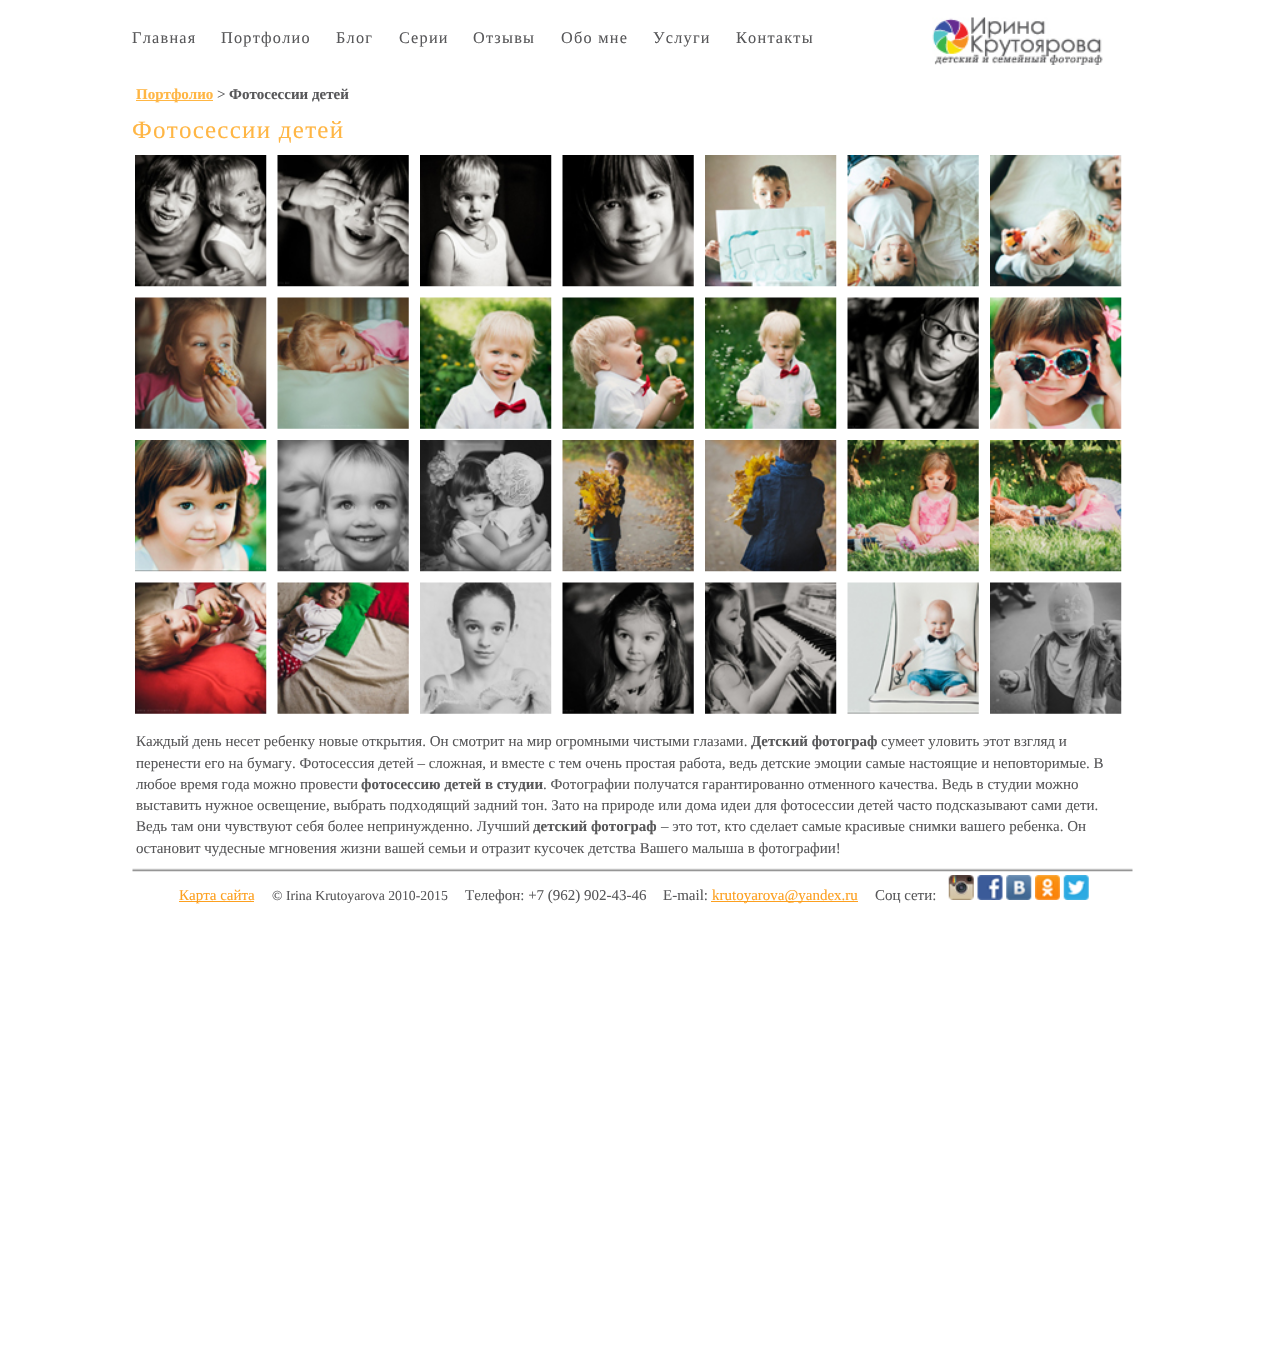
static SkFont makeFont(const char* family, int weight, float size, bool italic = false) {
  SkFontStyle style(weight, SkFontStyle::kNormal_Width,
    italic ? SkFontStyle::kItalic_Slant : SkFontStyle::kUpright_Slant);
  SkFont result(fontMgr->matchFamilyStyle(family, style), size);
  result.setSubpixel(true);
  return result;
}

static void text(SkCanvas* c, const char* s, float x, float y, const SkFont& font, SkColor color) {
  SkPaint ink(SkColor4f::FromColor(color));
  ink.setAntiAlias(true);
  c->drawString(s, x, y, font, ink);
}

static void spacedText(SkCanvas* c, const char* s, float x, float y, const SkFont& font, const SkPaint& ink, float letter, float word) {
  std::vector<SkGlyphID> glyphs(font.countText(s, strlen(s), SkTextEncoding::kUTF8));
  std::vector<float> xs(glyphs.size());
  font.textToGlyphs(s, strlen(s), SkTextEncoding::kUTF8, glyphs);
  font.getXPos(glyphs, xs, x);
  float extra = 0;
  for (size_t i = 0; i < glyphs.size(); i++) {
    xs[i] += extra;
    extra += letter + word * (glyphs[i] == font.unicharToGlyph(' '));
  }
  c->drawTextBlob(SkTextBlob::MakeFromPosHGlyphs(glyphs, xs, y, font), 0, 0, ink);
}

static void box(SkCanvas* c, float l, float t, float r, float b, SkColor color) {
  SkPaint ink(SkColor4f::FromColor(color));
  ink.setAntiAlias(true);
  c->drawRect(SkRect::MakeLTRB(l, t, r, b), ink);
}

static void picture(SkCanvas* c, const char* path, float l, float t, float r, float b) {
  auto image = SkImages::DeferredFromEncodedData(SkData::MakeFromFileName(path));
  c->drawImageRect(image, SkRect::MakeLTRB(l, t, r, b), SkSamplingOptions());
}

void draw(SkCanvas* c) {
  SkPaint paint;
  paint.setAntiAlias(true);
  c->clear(0xffffffff);
  SkFont face1 = makeFont("Liberation Serif", 400, 16.25f);
  paint.setColor(0xff58585a);
  spacedText(c, "Главная", 132, 43, face1, paint, 1.25f, 0);
  spacedText(c, "Портфолио", 221, 43, face1, paint, 1.25f, 0);
  spacedText(c, "Блог", 336, 43, face1, paint, 1.25f, 0);
  spacedText(c, "Серии", 399, 43, face1, paint, 1.25f, 0);
  spacedText(c, "Отзывы", 473, 43, face1, paint, 1.25f, 0);
  spacedText(c, "Обо мне", 561, 43, face1, paint, 1.25f, 0);
  spacedText(c, "Услуги", 653, 43, face1, paint, 1.25f, 0);
  spacedText(c, "Контакты", 736, 43, face1, paint, 1.25f, 0);
  picture(c, "img_01.png", 932, 17, 1103, 65);
  box(c, 136, 100, 213, 101, 0xffffb644);
  SkFont face2 = makeFont("Liberation Serif", 700, 15);
  text(c, "Портфолио", 136, 99, face2, 0xffffb644);
  SkFont face3 = makeFont("Liberation Serif", 400, 15);
  text(c, ">", 217, 99, face3, 0xff58585a);
  text(c, "Фотосессии детей", 229, 99, face2, 0xff58585a);
  SkFont face4 = makeFont("Liberation Serif", 400, 25);
  paint.setColor(0xffffb644);
  spacedText(c, "Фотосессии детей", 132, 138, face4, paint, 1.25f, 0);
  picture(c, "img_02.png", 135, 155, 267, 287);
  picture(c, "img_03.png", 277, 155, 409, 287);
  picture(c, "img_04.png", 420, 155, 552, 287);
  picture(c, "img_05.png", 562, 155, 694, 287);
  picture(c, "img_06.png", 705, 155, 837, 287);
  picture(c, "img_07.png", 847, 155, 979, 287);
  picture(c, "img_08.png", 990, 155, 1122, 287);
  picture(c, "img_09.png", 135, 297, 267, 429);
  picture(c, "img_10.png", 277, 297, 409, 429);
  picture(c, "img_11.png", 420, 297, 552, 429);
  picture(c, "img_12.png", 562, 297, 694, 429);
  picture(c, "img_13.png", 705, 297, 837, 429);
  picture(c, "img_14.png", 847, 297, 979, 429);
  picture(c, "img_15.png", 990, 297, 1122, 429);
  picture(c, "img_16.png", 135, 440, 267, 572);
  picture(c, "img_17.png", 277, 440, 409, 572);
  picture(c, "img_18.png", 420, 440, 552, 572);
  picture(c, "img_19.png", 562, 440, 694, 572);
  picture(c, "img_20.png", 705, 440, 837, 572);
  picture(c, "img_21.png", 847, 440, 979, 572);
  picture(c, "img_22.png", 990, 440, 1122, 572);
  picture(c, "img_23.png", 135, 582, 267, 714);
  picture(c, "img_24.png", 277, 582, 409, 714);
  picture(c, "img_25.png", 420, 582, 552, 714);
  picture(c, "img_26.png", 562, 582, 694, 714);
  picture(c, "img_27.png", 705, 582, 837, 714);
  picture(c, "img_28.png", 847, 582, 979, 714);
  picture(c, "img_29.png", 990, 582, 1122, 714);
  text(c, "Каждый день несет ребенку новые открытия. Он смотрит на мир огромными чистыми глазами.", 136, 746, face3, 0xff58585a);
  text(c, "Детский фотограф", 751, 746, face2, 0xff58585a);
  text(c, "сумеет уловить этот взгляд и", 881, 746, face3, 0xff58585a);
  text(c, "перенести его на бумагу. Фотосессия детей – сложная, и вместе с тем очень простая работа, ведь детские эмоции самые настоящие и неповторимые. В", 136, 768, face3, 0xff58585a);
  text(c, "любое время года можно провести", 136, 789, face3, 0xff58585a);
  text(c, "фотосессию детей в студии", 361, 789, face2, 0xff58585a);
  text(c, ". Фотографии получатся гарантированно отменного качества. Ведь в студии можно", 543, 789, face3, 0xff58585a);
  text(c, "выставить нужное освещение, выбрать подходящий задний тон. Зато на природе или дома идеи для фотосессии детей часто подсказывают сами дети.", 136, 810, face3, 0xff58585a);
  text(c, "Ведь там они чувствуют себя более непринужденно. Лучший", 136, 831, face3, 0xff58585a);
  text(c, "детский фотограф", 533, 831, face2, 0xff58585a);
  text(c, "– это тот, кто сделает самые красивые снимки вашего ребенка. Он", 661, 831, face3, 0xff58585a);
  text(c, "остановит чудесные мгновения жизни вашей семьи и отразит кусочек детства Вашего малыша в фотографии!", 136, 853, face3, 0xff58585a);
  picture(c, "img_30.png", 132, 868, 1133, 872);
  box(c, 179, 901, 254, 902, 0xfffda01f);
  text(c, "Карта сайта", 179, 900, face3, 0xfffda01f);
  SkFont face5 = makeFont("Liberation Serif", 400, 13.75f);
  text(c, "© Irina Krutoyarova 2010-2015", 272, 900, face5, 0xff58585a);
  text(c, "Телефон: +7 (962) 902-43-46", 465, 900, face3, 0xff58585a);
  text(c, "E-mail:", 663, 900, face3, 0xff58585a);
  box(c, 711, 901, 858, 902, 0xfffda01f);
  text(c, "krutoyarova@yandex.ru", 712, 900, face3, 0xfffda01f);
  text(c, "Соц сети:", 875, 900, face3, 0xff58585a);
  picture(c, "img_31.png", 948, 875, 974, 900);
  picture(c, "img_32.png", 977, 875, 1003, 900);
  picture(c, "img_33.png", 1006, 875, 1032, 900);
  picture(c, "img_34.png", 1035, 875, 1060, 900);
  picture(c, "img_35.png", 1063, 875, 1089, 900);
}
